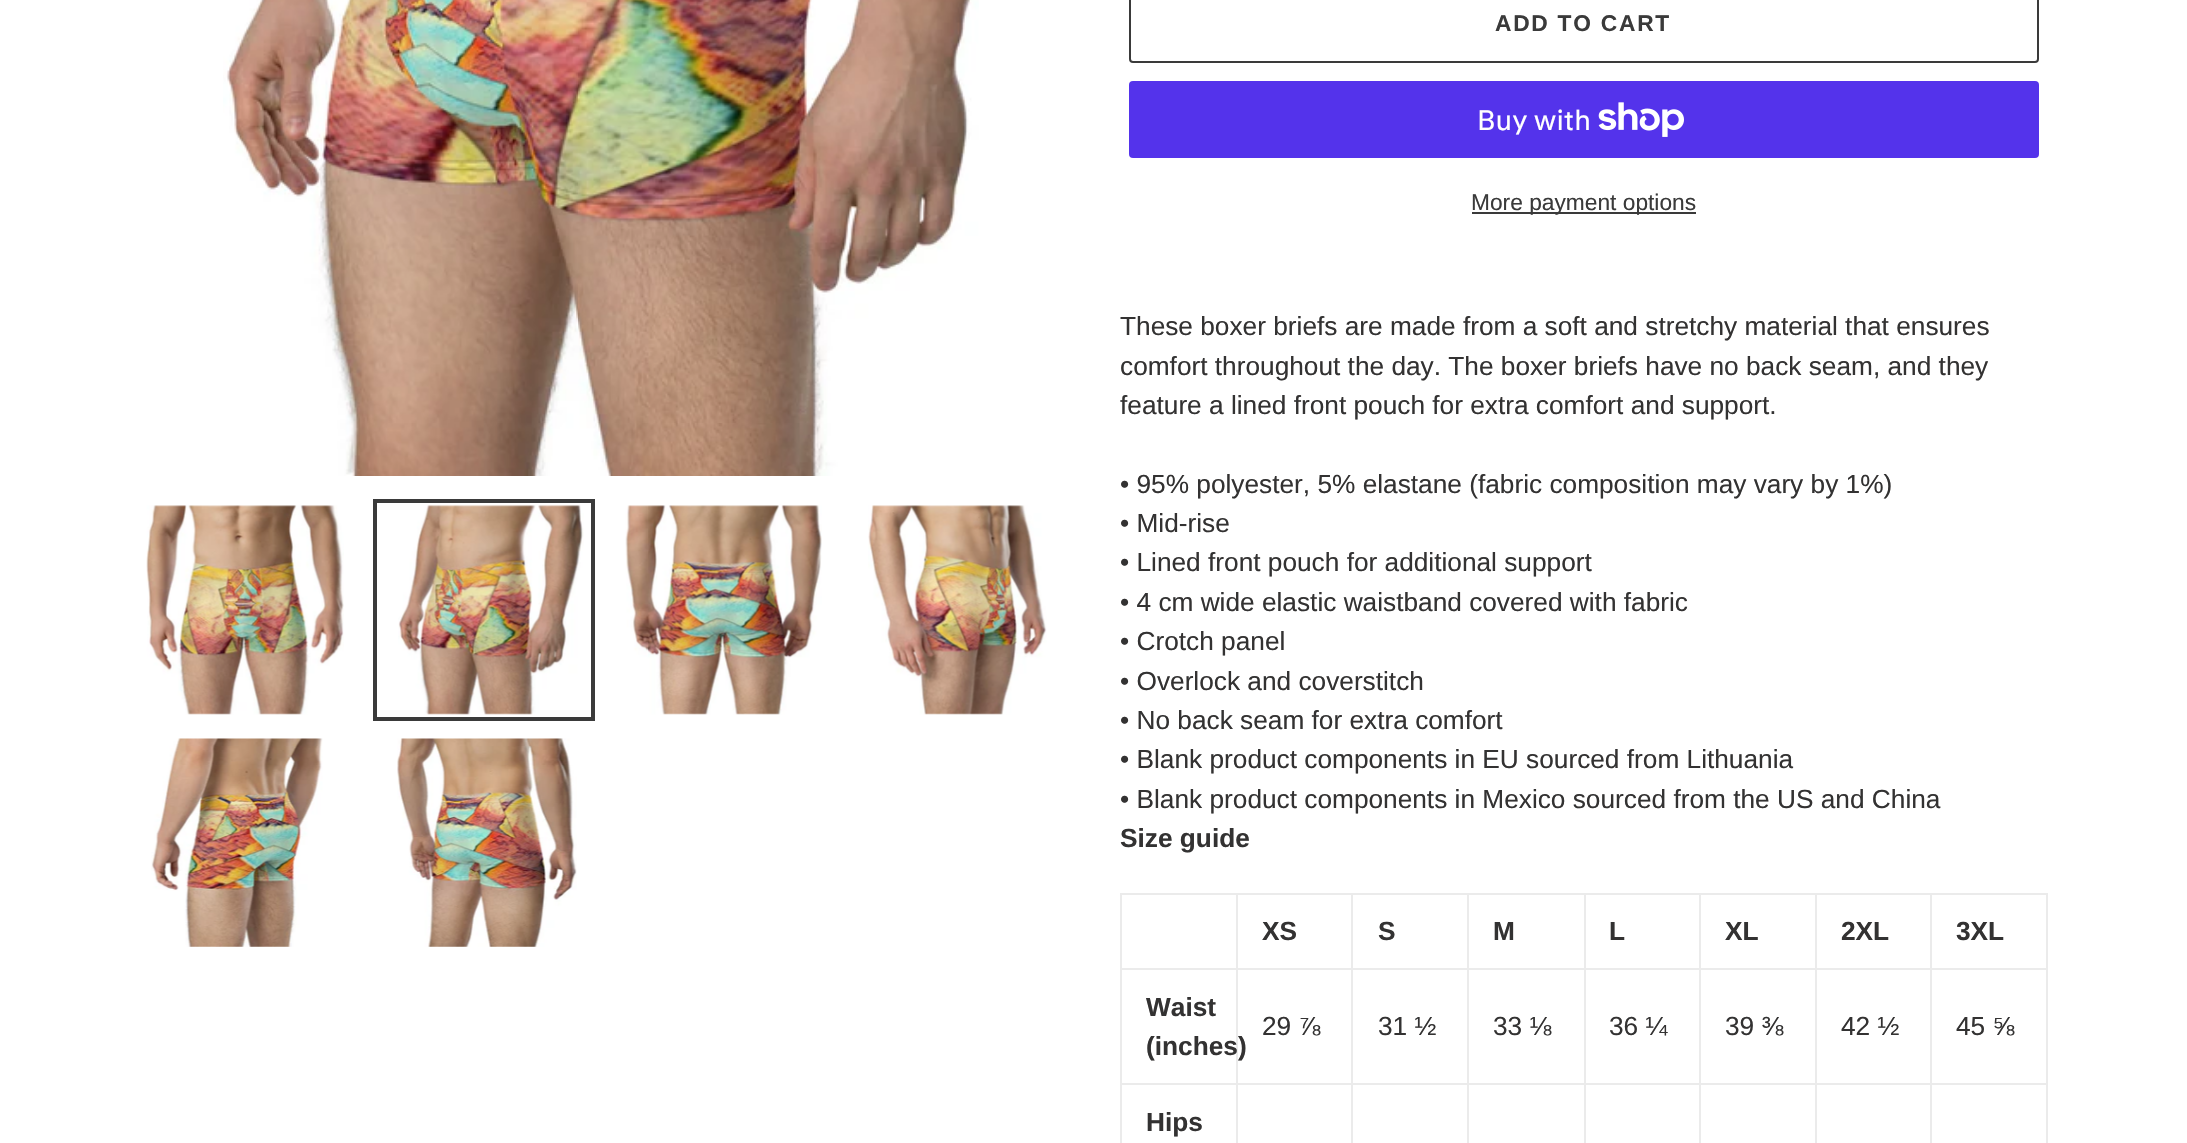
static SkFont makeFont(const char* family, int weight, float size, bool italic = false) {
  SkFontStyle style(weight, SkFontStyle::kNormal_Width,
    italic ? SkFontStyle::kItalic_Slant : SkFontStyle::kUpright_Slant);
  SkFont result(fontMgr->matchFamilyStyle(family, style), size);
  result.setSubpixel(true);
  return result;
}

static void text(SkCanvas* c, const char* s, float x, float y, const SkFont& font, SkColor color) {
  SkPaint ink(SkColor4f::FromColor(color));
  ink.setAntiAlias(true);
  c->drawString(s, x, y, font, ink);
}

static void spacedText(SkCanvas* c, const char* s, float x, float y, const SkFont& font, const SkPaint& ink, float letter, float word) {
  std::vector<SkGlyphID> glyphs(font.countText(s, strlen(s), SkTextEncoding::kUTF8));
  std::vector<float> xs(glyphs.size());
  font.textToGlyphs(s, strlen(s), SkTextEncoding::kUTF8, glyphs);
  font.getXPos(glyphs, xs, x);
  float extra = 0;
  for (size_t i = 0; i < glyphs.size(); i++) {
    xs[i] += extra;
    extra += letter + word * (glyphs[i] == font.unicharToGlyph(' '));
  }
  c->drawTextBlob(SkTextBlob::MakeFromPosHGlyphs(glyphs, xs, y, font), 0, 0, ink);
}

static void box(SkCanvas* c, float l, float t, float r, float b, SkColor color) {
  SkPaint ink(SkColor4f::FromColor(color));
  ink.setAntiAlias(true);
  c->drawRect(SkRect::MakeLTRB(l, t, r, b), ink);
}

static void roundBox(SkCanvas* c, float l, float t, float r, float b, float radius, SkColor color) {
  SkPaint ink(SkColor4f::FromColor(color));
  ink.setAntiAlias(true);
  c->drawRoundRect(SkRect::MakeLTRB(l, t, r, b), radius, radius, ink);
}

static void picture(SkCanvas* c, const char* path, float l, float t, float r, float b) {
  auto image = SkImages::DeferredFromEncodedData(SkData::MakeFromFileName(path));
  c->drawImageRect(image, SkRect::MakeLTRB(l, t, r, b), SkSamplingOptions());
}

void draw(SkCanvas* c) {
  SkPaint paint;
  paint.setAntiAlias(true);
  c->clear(0xffffffff);
  picture(c, "img_01.png", 223, 0, 979, 476);
  picture(c, "img_02.png", 146, 505, 344, 715);
  paint.setStyle(SkPaint::kStroke_Style);
  paint.setStrokeWidth(4);
  paint.setColor(0xff3a3a3a);
  c->drawRect(SkRect::MakeLTRB(375, 501, 593, 719), paint);
  picture(c, "img_03.png", 398, 505, 584, 715);
  picture(c, "img_04.png", 625, 505, 822, 715);
  picture(c, "img_05.png", 868, 505, 1047, 715);
  picture(c, "img_06.png", 151, 738, 323, 947);
  picture(c, "img_07.png", 397, 738, 577, 947);
  paint.setStrokeWidth(2);
  c->drawRoundRect(SkRect::MakeLTRB(1130, -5, 2038, 62), 3, 3, paint);
  SkFont face1 = makeFont("Liberation Sans", 700, 22.75f);
  paint.setStyle(SkPaint::kFill_Style);
  spacedText(c, "ADD TO CART", 1495, 31, face1, paint, 1.75f, 0);
  roundBox(c, 1129, 81, 2039, 158, 4, 0xff5433eb);
  SkFont face2 = makeFont("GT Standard", 400, 28);
  text(c, "Buy with", 1477, 130, face2, 0xffffffff);
  picture(c, "img_08.png", 1598, 102, 1684, 137);
  box(c, 1472, 212, 1696, 214, 0xff3a3a3a);
  SkFont face3 = makeFont("Liberation Sans", 400, 22.75f);
  text(c, "More payment options", 1471, 210, face3, 0xff3a3a3a);
  SkFont face4 = makeFont("Liberation Sans", 400, 26.25f);
  text(c, "These boxer briefs are made from a soft and stretchy material that ensures", 1120, 335, face4, 0xff333232);
  text(c, "comfort throughout the day. The boxer briefs have no back seam, and they", 1120, 375, face4, 0xff333232);
  text(c, "feature a lined front pouch for extra comfort and support.", 1120, 414, face4, 0xff333232);
  text(c, "• 95% polyester, 5% elastane (fabric composition may vary by 1%)", 1120, 493, face4, 0xff333232);
  text(c, "• Mid-rise", 1120, 532, face4, 0xff333232);
  text(c, "• Lined front pouch for additional support", 1120, 571, face4, 0xff333232);
  text(c, "• 4 cm wide elastic waistband covered with fabric", 1120, 611, face4, 0xff333232);
  text(c, "• Crotch panel", 1120, 650, face4, 0xff333232);
  text(c, "• Overlock and coverstitch", 1120, 690, face4, 0xff333232);
  text(c, "• No back seam for extra comfort", 1120, 729, face4, 0xff333232);
  text(c, "• Blank product components in EU sourced from Lithuania", 1120, 768, face4, 0xff333232);
  text(c, "• Blank product components in Mexico sourced from the US and China", 1120, 808, face4, 0xff333232);
  SkFont face5 = makeFont("Liberation Sans", 700, 26.25f);
  text(c, "Size guide", 1120, 847, face5, 0xff333232);
  box(c, 1930, 893, 2048, 895, 0xffebebeb);
  box(c, 1930, 968, 2048, 970, 0xffebebeb);
  box(c, 1930, 1083, 2048, 1085, 0xffebebeb);
  box(c, 1930, 1083, 1932, 1143, 0xffebebeb);
  box(c, 1815, 1083, 1932, 1085, 0xffebebeb);
  box(c, 1930, 968, 1932, 1085, 0xffebebeb);
  box(c, 1815, 968, 1932, 970, 0xffebebeb);
  box(c, 1930, 893, 1932, 970, 0xffebebeb);
  box(c, 1815, 893, 1932, 895, 0xffebebeb);
  box(c, 1815, 1083, 1817, 1143, 0xffebebeb);
  box(c, 1699, 1083, 1817, 1085, 0xffebebeb);
  box(c, 1815, 968, 1817, 1085, 0xffebebeb);
  box(c, 1699, 968, 1817, 970, 0xffebebeb);
  box(c, 1815, 893, 1817, 970, 0xffebebeb);
  box(c, 1699, 893, 1817, 895, 0xffebebeb);
  box(c, 1699, 1083, 1701, 1143, 0xffebebeb);
  box(c, 1584, 1083, 1701, 1085, 0xffebebeb);
  box(c, 1699, 968, 1701, 1085, 0xffebebeb);
  box(c, 1584, 968, 1701, 970, 0xffebebeb);
  box(c, 1699, 893, 1701, 970, 0xffebebeb);
  box(c, 1584, 893, 1701, 895, 0xffebebeb);
  box(c, 1584, 1083, 1586, 1143, 0xffebebeb);
  box(c, 1467, 1083, 1586, 1085, 0xffebebeb);
  box(c, 1584, 968, 1586, 1085, 0xffebebeb);
  box(c, 1467, 968, 1586, 970, 0xffebebeb);
  box(c, 1584, 893, 1586, 970, 0xffebebeb);
  box(c, 1467, 893, 1586, 895, 0xffebebeb);
  box(c, 1467, 1083, 1469, 1143, 0xffebebeb);
  box(c, 1351, 1083, 1468, 1085, 0xffebebeb);
  box(c, 1467, 968, 1469, 1085, 0xffebebeb);
  box(c, 1351, 968, 1468, 970, 0xffebebeb);
  box(c, 1467, 893, 1469, 970, 0xffebebeb);
  box(c, 1351, 893, 1468, 895, 0xffebebeb);
  box(c, 1351, 1083, 1353, 1143, 0xffebebeb);
  box(c, 1236, 1083, 1353, 1085, 0xffebebeb);
  box(c, 1351, 968, 1353, 1085, 0xffebebeb);
  box(c, 1236, 968, 1353, 970, 0xffebebeb);
  box(c, 1351, 893, 1353, 970, 0xffebebeb);
  box(c, 1236, 893, 1353, 895, 0xffebebeb);
  box(c, 1236, 1083, 1238, 1143, 0xffebebeb);
  box(c, 1120, 1083, 1237, 1085, 0xffebebeb);
  box(c, 1236, 968, 1238, 1085, 0xffebebeb);
  box(c, 1120, 968, 1237, 970, 0xffebebeb);
  box(c, 1236, 893, 1238, 970, 0xffebebeb);
  box(c, 1120, 893, 1237, 895, 0xffebebeb);
  box(c, 1120, 1083, 1122, 1143, 0xffebebeb);
  box(c, 1120, 968, 1122, 1085, 0xffebebeb);
  box(c, 1120, 893, 1122, 970, 0xffebebeb);
  text(c, "XS", 1262, 940, face5, 0xff333232);
  text(c, "S", 1378, 940, face5, 0xff333232);
  text(c, "M", 1493, 940, face5, 0xff333232);
  text(c, "L", 1609, 940, face5, 0xff333232);
  text(c, "XL", 1725, 940, face5, 0xff333232);
  text(c, "2XL", 1841, 940, face5, 0xff333232);
  box(c, 2046, 1083, 2048, 1143, 0xffebebeb);
  box(c, 2046, 968, 2048, 1085, 0xffebebeb);
  box(c, 2046, 893, 2048, 970, 0xffebebeb);
  text(c, "3XL", 1956, 940, face5, 0xff333232);
  text(c, "Waist", 1146, 1016, face5, 0xff333232);
  text(c, "(inches)", 1146, 1055, face5, 0xff333232);
  text(c, "29 ⅞", 1262, 1035, face4, 0xff333232);
  text(c, "31 ½", 1378, 1035, face4, 0xff333232);
  text(c, "33 ⅛", 1493, 1035, face4, 0xff333232);
  text(c, "36 ¼", 1609, 1035, face4, 0xff333232);
  text(c, "39 ⅜", 1725, 1035, face4, 0xff333232);
  text(c, "42 ½", 1841, 1035, face4, 0xff333232);
  text(c, "45 ⅝", 1956, 1035, face4, 0xff333232);
  text(c, "Hips", 1146, 1131, face5, 0xff333232);
}
